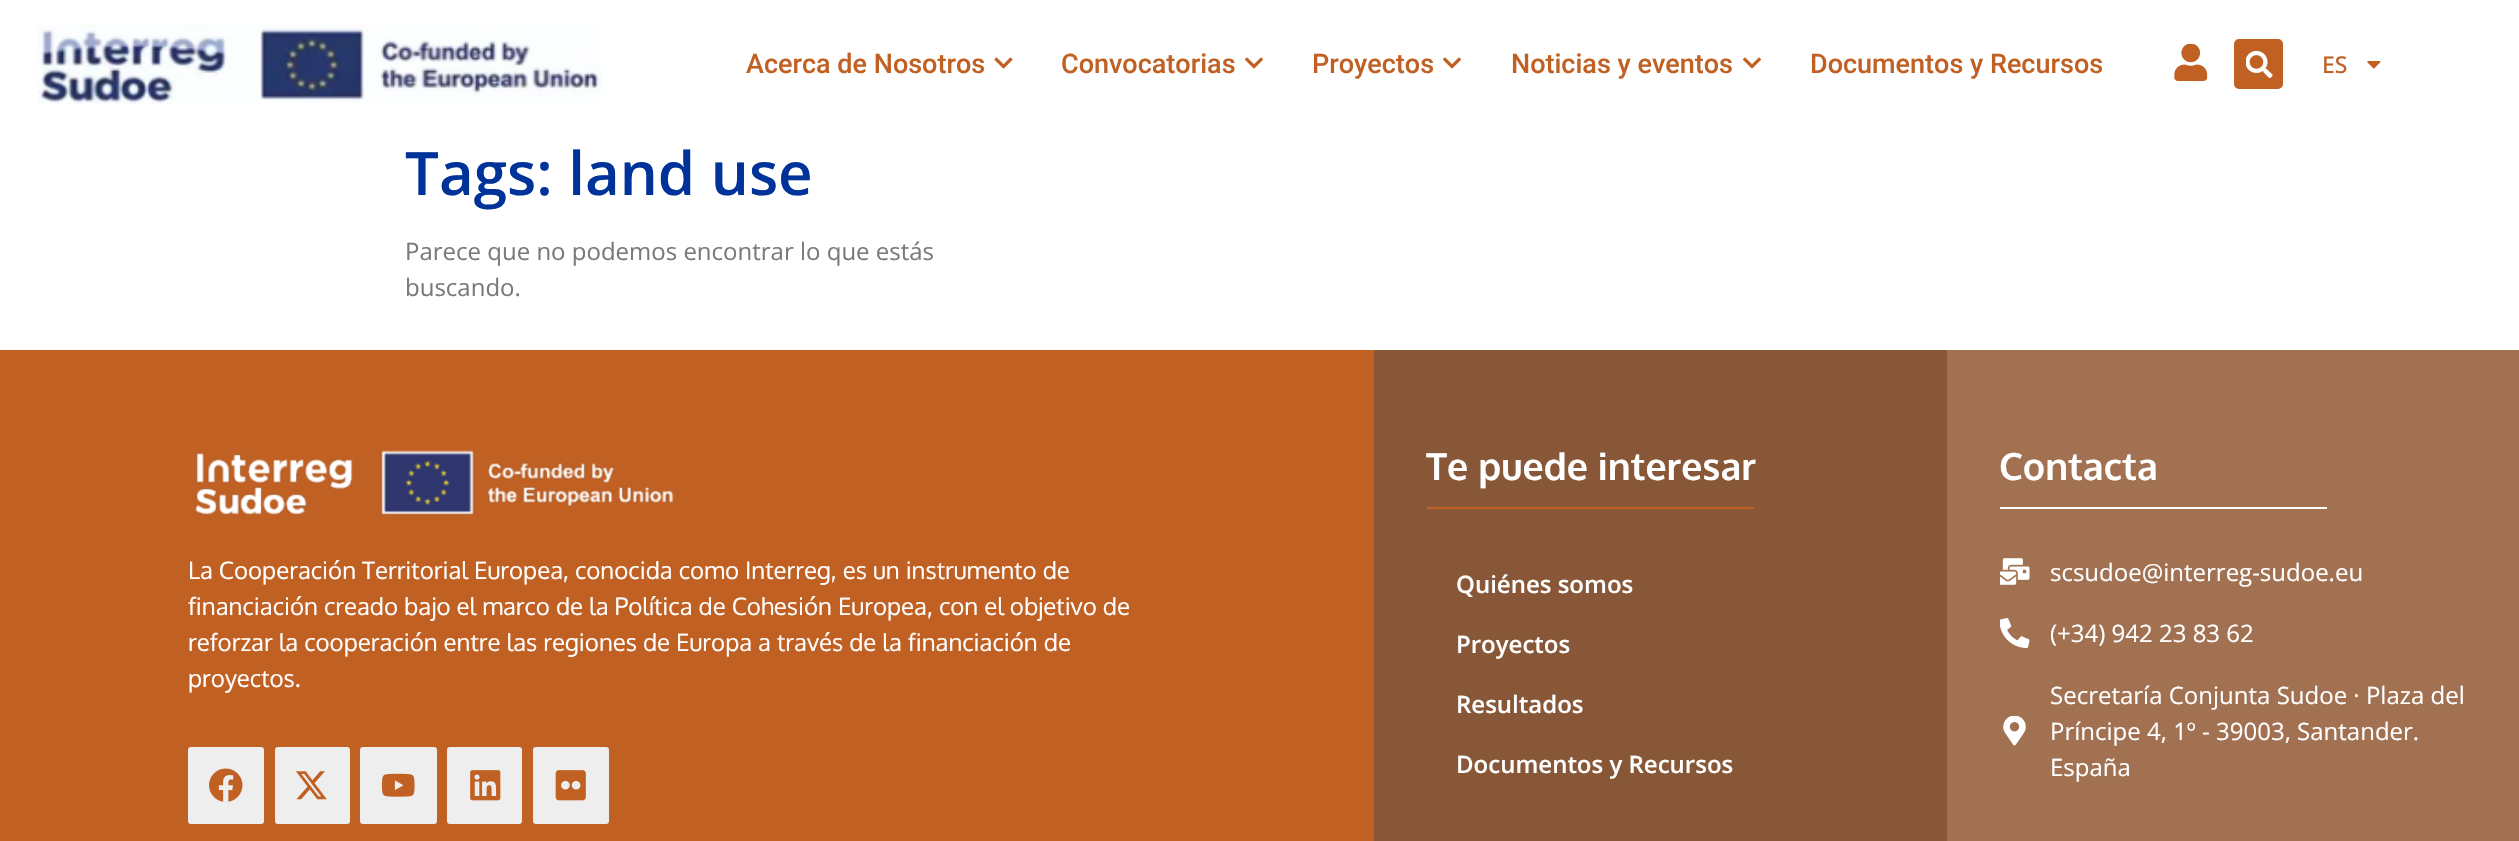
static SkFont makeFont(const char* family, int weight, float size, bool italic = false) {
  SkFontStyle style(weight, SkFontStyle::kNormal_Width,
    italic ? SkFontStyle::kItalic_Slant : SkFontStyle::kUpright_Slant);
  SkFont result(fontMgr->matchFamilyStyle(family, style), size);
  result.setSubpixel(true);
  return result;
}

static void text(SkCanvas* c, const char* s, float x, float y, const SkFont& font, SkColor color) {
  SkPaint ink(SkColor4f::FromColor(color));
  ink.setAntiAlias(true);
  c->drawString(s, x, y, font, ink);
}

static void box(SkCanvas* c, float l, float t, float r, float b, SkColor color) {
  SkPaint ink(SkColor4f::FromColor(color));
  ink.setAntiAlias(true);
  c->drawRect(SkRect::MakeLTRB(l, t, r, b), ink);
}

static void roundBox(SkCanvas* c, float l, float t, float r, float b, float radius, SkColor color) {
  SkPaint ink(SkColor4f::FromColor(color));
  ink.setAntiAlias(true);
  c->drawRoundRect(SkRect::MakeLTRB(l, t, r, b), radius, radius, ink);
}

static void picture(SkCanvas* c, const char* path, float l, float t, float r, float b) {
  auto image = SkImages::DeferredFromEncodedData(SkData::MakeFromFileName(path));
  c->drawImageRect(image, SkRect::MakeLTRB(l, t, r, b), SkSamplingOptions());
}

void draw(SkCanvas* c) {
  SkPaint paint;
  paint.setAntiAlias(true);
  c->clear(0xffffffff);
  picture(c, "img_01.png", 37, 24, 602, 104);
  SkFont face1 = makeFont("Roboto", 500, 27);
  text(c, "Acerca de Nosotros", 746, 73, face1, 0xffc16023);
  picture(c, "img_02.png", 994, 57, 1013, 69);
  text(c, "Convocatorias", 1061, 73, face1, 0xffc16023);
  picture(c, "img_03.png", 1245, 57, 1263, 69);
  text(c, "Proyectos", 1312, 73, face1, 0xffc16023);
  picture(c, "img_03.png", 1443, 57, 1461, 69);
  text(c, "Noticias y eventos", 1511, 73, face1, 0xffc16023);
  picture(c, "img_03.png", 1743, 57, 1761, 69);
  text(c, "Documentos y Recursos", 1810, 73, face1, 0xffc16023);
  picture(c, "img_04.png", 2174, 44, 2208, 81);
  roundBox(c, 2234, 39, 2283, 89, 5, 0xffc16023);
  picture(c, "img_05.png", 2246, 51, 2273, 78);
  SkFont face2 = makeFont("Open Sans", 500, 23);
  text(c, "ES", 2322, 73, face2, 0xffc16023);
  picture(c, "img_06.png", 2367, 61, 2381, 69);
  SkFont face3 = makeFont("Open Sans", 600, 60);
  text(c, "Tags: land use", 405, 195, face3, 0xff003399);
  SkFont face4 = makeFont("Open Sans", 400, 24);
  text(c, "Parece que no podemos encontrar lo que estás", 405, 260, face4, 0xff7a7a7a);
  text(c, "buscando.", 405, 296, face4, 0xff7a7a7a);
  box(c, 0, 350, 1374, 841, 0xffc16023);
  picture(c, "img_07.png", 194, 450, 674, 515);
  SkFont face5 = makeFont("Oxygen", 400, 24);
  text(c, "La Cooperación Territorial Europea, conocida como Interreg, es un instrumento de", 188, 579, face5, 0xffffffff);
  text(c, "financiación creado bajo el marco de la Política de Cohesión Europea, con el objetivo de", 188, 615, face5, 0xffffffff);
  text(c, "reforzar la cooperación entre las regiones de Europa a través de la financiación de", 188, 651, face5, 0xffffffff);
  text(c, "proyectos.", 188, 687, face5, 0xffffffff);
  roundBox(c, 188, 747, 264, 824, 3, 0xffeeeeee);
  picture(c, "img_08.png", 209, 768, 243, 802);
  roundBox(c, 275, 747, 350, 824, 3, 0xffeeeeee);
  picture(c, "img_09.png", 296, 771, 327, 800);
  roundBox(c, 360, 747, 437, 824, 3, 0xffeeeeee);
  picture(c, "img_10.png", 381, 773, 415, 797);
  roundBox(c, 447, 747, 522, 824, 3, 0xffeeeeee);
  picture(c, "img_11.png", 470, 770, 501, 801);
  roundBox(c, 533, 747, 609, 824, 3, 0xffeeeeee);
  picture(c, "img_12.png", 555, 770, 586, 801);
  box(c, 1374, 350, 1947, 841, 0xff875738);
  SkFont face6 = makeFont("Oxygen", 700, 37.5f);
  text(c, "Te puede interesar", 1426, 480, face6, 0xffffffff);
  box(c, 1427, 507, 1754, 509, 0xffc16023);
  SkFont face7 = makeFont("Open Sans", 600, 24);
  text(c, "Quiénes somos", 1456, 593, face7, 0xffffffff);
  text(c, "Proyectos", 1456, 653, face7, 0xffffffff);
  text(c, "Resultados", 1456, 713, face7, 0xffffffff);
  text(c, "Documentos y Recursos", 1456, 773, face7, 0xffffffff);
  box(c, 1947, 350, 2519, 841, 0xffa17152);
  text(c, "Contacta", 1999, 480, face6, 0xffffffff);
  box(c, 2000, 507, 2327, 509, 0xffffffff);
  picture(c, "img_13.png", 2000, 558, 2030, 585);
  text(c, "scsudoe@interreg-sudoe.eu", 2050, 581, face4, 0xffffffff);
  picture(c, "img_14.png", 2000, 618, 2030, 648);
  text(c, "(+34) 942 23 83 62", 2050, 642, face4, 0xffffffff);
  picture(c, "img_15.png", 2003, 716, 2026, 746);
  text(c, "Secretaría Conjunta Sudoe · Plaza del", 2050, 704, face4, 0xffffffff);
  text(c, "Príncipe 4, 1º - 39003, Santander.", 2050, 740, face4, 0xffffffff);
  text(c, "España", 2050, 776, face4, 0xffffffff);
}
